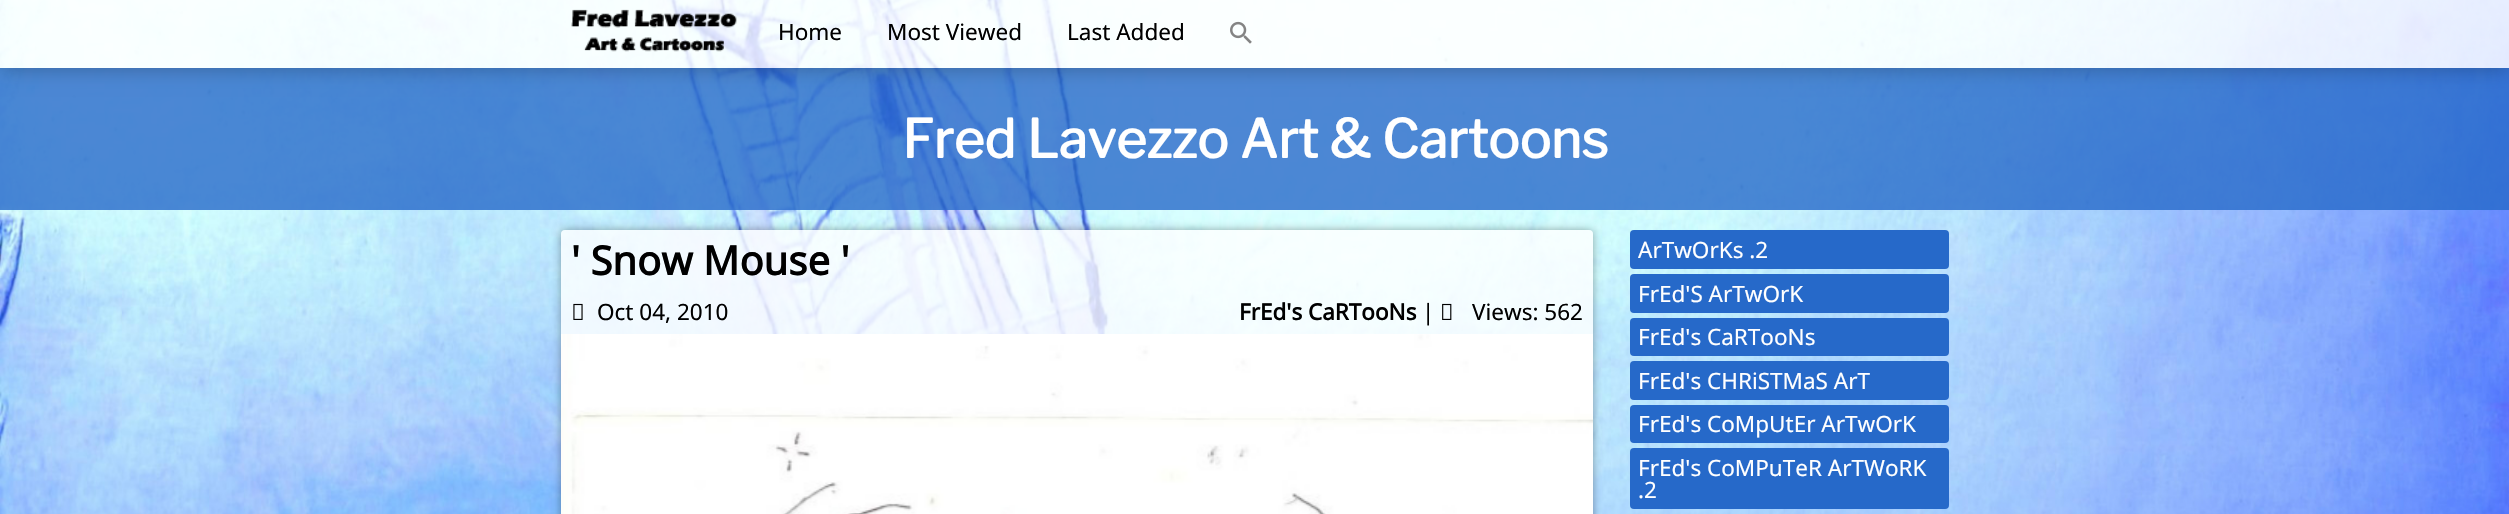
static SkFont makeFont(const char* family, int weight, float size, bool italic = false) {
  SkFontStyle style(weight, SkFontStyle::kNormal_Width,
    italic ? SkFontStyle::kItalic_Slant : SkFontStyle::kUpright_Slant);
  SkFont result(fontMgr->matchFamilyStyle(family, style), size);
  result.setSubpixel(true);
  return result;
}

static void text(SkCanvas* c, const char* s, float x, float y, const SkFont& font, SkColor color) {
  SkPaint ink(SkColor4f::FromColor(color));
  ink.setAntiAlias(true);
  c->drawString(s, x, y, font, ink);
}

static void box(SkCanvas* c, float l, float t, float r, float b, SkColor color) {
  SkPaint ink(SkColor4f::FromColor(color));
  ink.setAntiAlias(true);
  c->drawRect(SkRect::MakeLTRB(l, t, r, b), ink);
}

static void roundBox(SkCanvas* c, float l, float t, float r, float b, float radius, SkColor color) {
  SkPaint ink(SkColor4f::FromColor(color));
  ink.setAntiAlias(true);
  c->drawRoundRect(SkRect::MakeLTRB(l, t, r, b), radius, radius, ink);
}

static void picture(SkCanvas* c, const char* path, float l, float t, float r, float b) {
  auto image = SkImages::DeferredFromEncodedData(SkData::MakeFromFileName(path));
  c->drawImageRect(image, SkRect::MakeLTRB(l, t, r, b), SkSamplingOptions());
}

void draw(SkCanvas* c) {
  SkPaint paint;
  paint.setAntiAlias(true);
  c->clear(0xffffffff);
  picture(c, "img_01.png", 0, 0, 2509, 514);
  box(c, 0, 68, 2509, 210, 0xcc2669c9);
  c->save();
  c->clipPath(SkPathBuilder(SkPathFillType::kEvenOdd).moveTo(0, 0).lineTo(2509, 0).lineTo(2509, 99).lineTo(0, 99).close().moveTo(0, 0).lineTo(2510, 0).lineTo(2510, 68).lineTo(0, 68).close().detach(), true);
  paint.setColor(0x40000000);
  paint.setMaskFilter(SkMaskFilter::MakeBlur(kNormal_SkBlurStyle, 9.5f));
  c->drawRect(SkRect::MakeLTRB(0, 1, 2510, 69), paint);
  paint.setMaskFilter(nullptr);
  c->restore();
  box(c, 0, 0, 2509, 68, 0xccffffff);
  picture(c, "img_02.png", 571, 9, 737, 52);
  SkFont face1 = makeFont("Noto Sans", 400, 22.5f);
  text(c, "Home", 778, 40, face1, 0xff000000);
  text(c, "Most Viewed", 887, 40, face1, 0xff000000);
  text(c, "Last Added", 1067, 40, face1, 0xff000000);
  picture(c, "img_03.png", 1230, 21, 1252, 44);
  SkFont face2 = makeFont("Libre Franklin", 700, 52.5f);
  text(c, "Fred Lavezzo Art & Cartoons", 902, 158, face2, 0xffffffff);
  c->save();
  c->clipPath(SkPathBuilder(SkPathFillType::kEvenOdd).moveTo(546, 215).lineTo(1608, 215).lineTo(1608, 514).lineTo(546, 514).close().moveTo(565, 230).lineTo(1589, 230).cubicTo(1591, 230, 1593, 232, 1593, 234).lineTo(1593, 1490).cubicTo(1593, 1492, 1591, 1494, 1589, 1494).lineTo(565, 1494).cubicTo(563, 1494, 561, 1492, 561, 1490).lineTo(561, 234).cubicTo(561, 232, 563, 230, 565, 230).close().detach(), true);
  paint.setColor(0x59000000);
  paint.setMaskFilter(SkMaskFilter::MakeBlur(kNormal_SkBlurStyle, 4.5f));
  c->drawRoundRect(SkRect::MakeLTRB(561, 230, 1593, 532), 4, 4, paint);
  paint.setMaskFilter(nullptr);
  c->restore();
  roundBox(c, 561, 230, 1593, 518, 4, 0xccffffff);
  SkFont face3 = makeFont("Noto Sans", 700, 40);
  text(c, "' Snow Mouse '", 571, 275, face3, 0xff000000);
  picture(c, "img_04.png", 573, 303, 583, 320);
  text(c, "Oct 04, 2010", 597, 320, face1, 0xff000000);
  SkFont face4 = makeFont("Noto Sans", 700, 22.5f);
  text(c, "FrEd's CaRTooNs", 1239, 320, face4, 0xff000000);
  text(c, "|", 1422, 320, face1, 0xff000000);
  picture(c, "img_05.png", 1442, 303, 1452, 320);
  text(c, "Views: 562", 1472, 320, face1, 0xff000000);
  picture(c, "img_06.png", 561, 334, 1593, 514);
  roundBox(c, 1630, 230, 1949, 269, 4, 0xff2669c9);
  text(c, "ArTwOrKs .2", 1638, 258, face1, 0xffffffff);
  roundBox(c, 1630, 274, 1949, 313, 4, 0xff2669c9);
  text(c, "FrEd'S ArTwOrK", 1638, 302, face1, 0xffffffff);
  roundBox(c, 1630, 318, 1949, 356, 4, 0xff2669c9);
  text(c, "FrEd's CaRTooNs", 1638, 345, face1, 0xffffffff);
  roundBox(c, 1630, 361, 1949, 400, 4, 0xff2669c9);
  text(c, "FrEd's CHRiSTMaS ArT", 1638, 389, face1, 0xffffffff);
  roundBox(c, 1630, 405, 1949, 443, 4, 0xff2669c9);
  text(c, "FrEd's CoMpUtEr ArTwOrK", 1638, 432, face1, 0xffffffff);
  roundBox(c, 1630, 448, 1949, 509, 4, 0xff2669c9);
  text(c, "FrEd's CoMPuTeR ArTWoRK", 1638, 476, face1, 0xffffffff);
  text(c, ".2", 1638, 498, face1, 0xffffffff);
}
